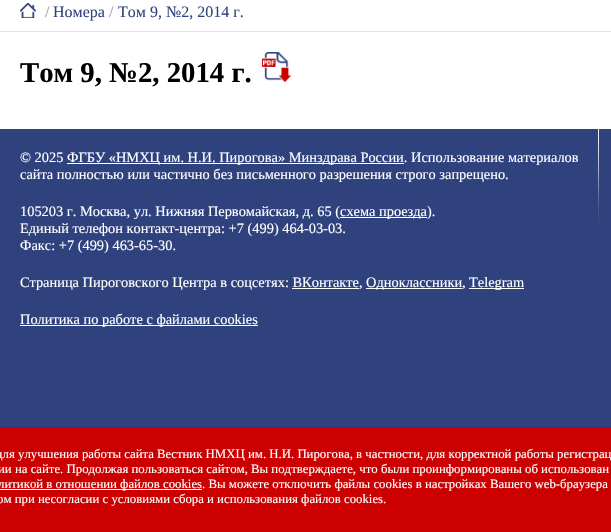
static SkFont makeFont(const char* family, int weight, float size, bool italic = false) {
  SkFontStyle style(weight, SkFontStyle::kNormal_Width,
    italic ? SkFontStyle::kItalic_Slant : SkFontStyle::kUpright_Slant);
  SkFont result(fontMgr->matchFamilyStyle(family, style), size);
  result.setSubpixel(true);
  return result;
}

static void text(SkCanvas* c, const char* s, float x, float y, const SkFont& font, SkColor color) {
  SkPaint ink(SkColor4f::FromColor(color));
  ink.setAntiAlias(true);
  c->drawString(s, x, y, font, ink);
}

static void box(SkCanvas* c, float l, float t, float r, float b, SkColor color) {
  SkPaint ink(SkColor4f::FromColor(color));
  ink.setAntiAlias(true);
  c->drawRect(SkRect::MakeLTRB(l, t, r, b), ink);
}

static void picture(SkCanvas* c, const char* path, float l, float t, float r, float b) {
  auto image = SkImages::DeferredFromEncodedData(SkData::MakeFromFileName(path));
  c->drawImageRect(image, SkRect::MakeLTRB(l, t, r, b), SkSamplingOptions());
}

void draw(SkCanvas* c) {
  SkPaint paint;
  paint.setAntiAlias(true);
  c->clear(0xffffffff);
  box(c, 0, 31, 611, 32, 0xffe5e5e5);
  picture(c, "img_01.png", 20, 3, 36, 18);
  SkFont face1 = makeFont("Liberation Serif", 400, 16);
  text(c, "/", 45, 17, face1, 0xff999999);
  text(c, "Номера", 53, 17, face1, 0xff30427d);
  text(c, "/", 109, 17, face1, 0xff999999);
  text(c, "Том 9, №2, 2014 г.", 118, 17, face1, 0xff30427d);
  SkFont face2 = makeFont("Liberation Serif", 700, 28.75f);
  text(c, "Том 9, №2, 2014 г.", 20, 82, face2, 0xff000000);
  picture(c, "img_02.png", 262, 52, 291, 82);
  box(c, 0, 129, 611, 427, 0xff30427d);
  SkFont face3 = makeFont("Liberation Serif", 400, 14.4f);
  text(c, "© 2025", 20, 162, face3, 0xffffffff);
  box(c, 67, 163, 404, 164, 0xffffffff);
  text(c, "ФГБУ «НМХЦ им. Н.И. Пирогова» Минздрава России. Использование материалов", 67, 162, face3, 0xffffffff);
  text(c, "сайта полностью или частично без письменного разрешения строго запрещено.", 20, 179, face3, 0xffffffff);
  text(c, "105203 г. Москва, ул. Нижняя Первомайская, д. 65 (", 20, 216, face3, 0xffffffff);
  box(c, 340, 217, 427, 218, 0xffffffff);
  text(c, "схема проезда).", 340, 216, face3, 0xffffffff);
  text(c, "Единый телефон контакт-центра: +7 (499) 464-03-03.", 20, 233, face3, 0xffffffff);
  text(c, "Факс: +7 (499) 463-65-30.", 20, 250, face3, 0xffffffff);
  text(c, "Страница Пироговского Центра в соцсетях: ВКонтакте,", 20, 287, face3, 0xffffffff);
  box(c, 366, 288, 462, 289, 0xffffffff);
  text(c, "Одноклассники,", 366, 287, face3, 0xffffffff);
  box(c, 469, 288, 524, 289, 0xffffffff);
  text(c, "Telegram", 469, 287, face3, 0xffffffff);
  box(c, 292, 288, 359, 289, 0xffffffff);
  box(c, 20, 325, 258, 326, 0xffffffff);
  text(c, "Политика по работе с файлами cookies", 20, 324, face3, 0xffffffff);
  picture(c, "img_03.png", 598, 129, 599, 229);
  box(c, 0, 427, 611, 532, 0xffcc0000);
  SkFont face4 = makeFont("Liberation Serif", 400, 12.8f);
  text(c, "для улучшения работы сайта Вестник НМХЦ им. Н.И. Пирогова, в частности, для корректной работы регистрац", -4, 458, face4, 0xffffffff);
  text(c, "ии на сайте. Продолжая пользоваться сайтом, Вы подтверждаете, что были проинформированы об использован", -2, 473, face4, 0xffffffff);
  box(c, 0, 489, 202, 490, 0xffffffff);
  text(c, "литикой в отношении файлов cookies. Вы можете отключить файлы cookies в настройках Вашего web-браузера", -2, 488, face4, 0xffffffff);
  text(c, "ом при несогласии с условиями сбора и использования файлов cookies.", -3, 503, face4, 0xffffffff);
}
